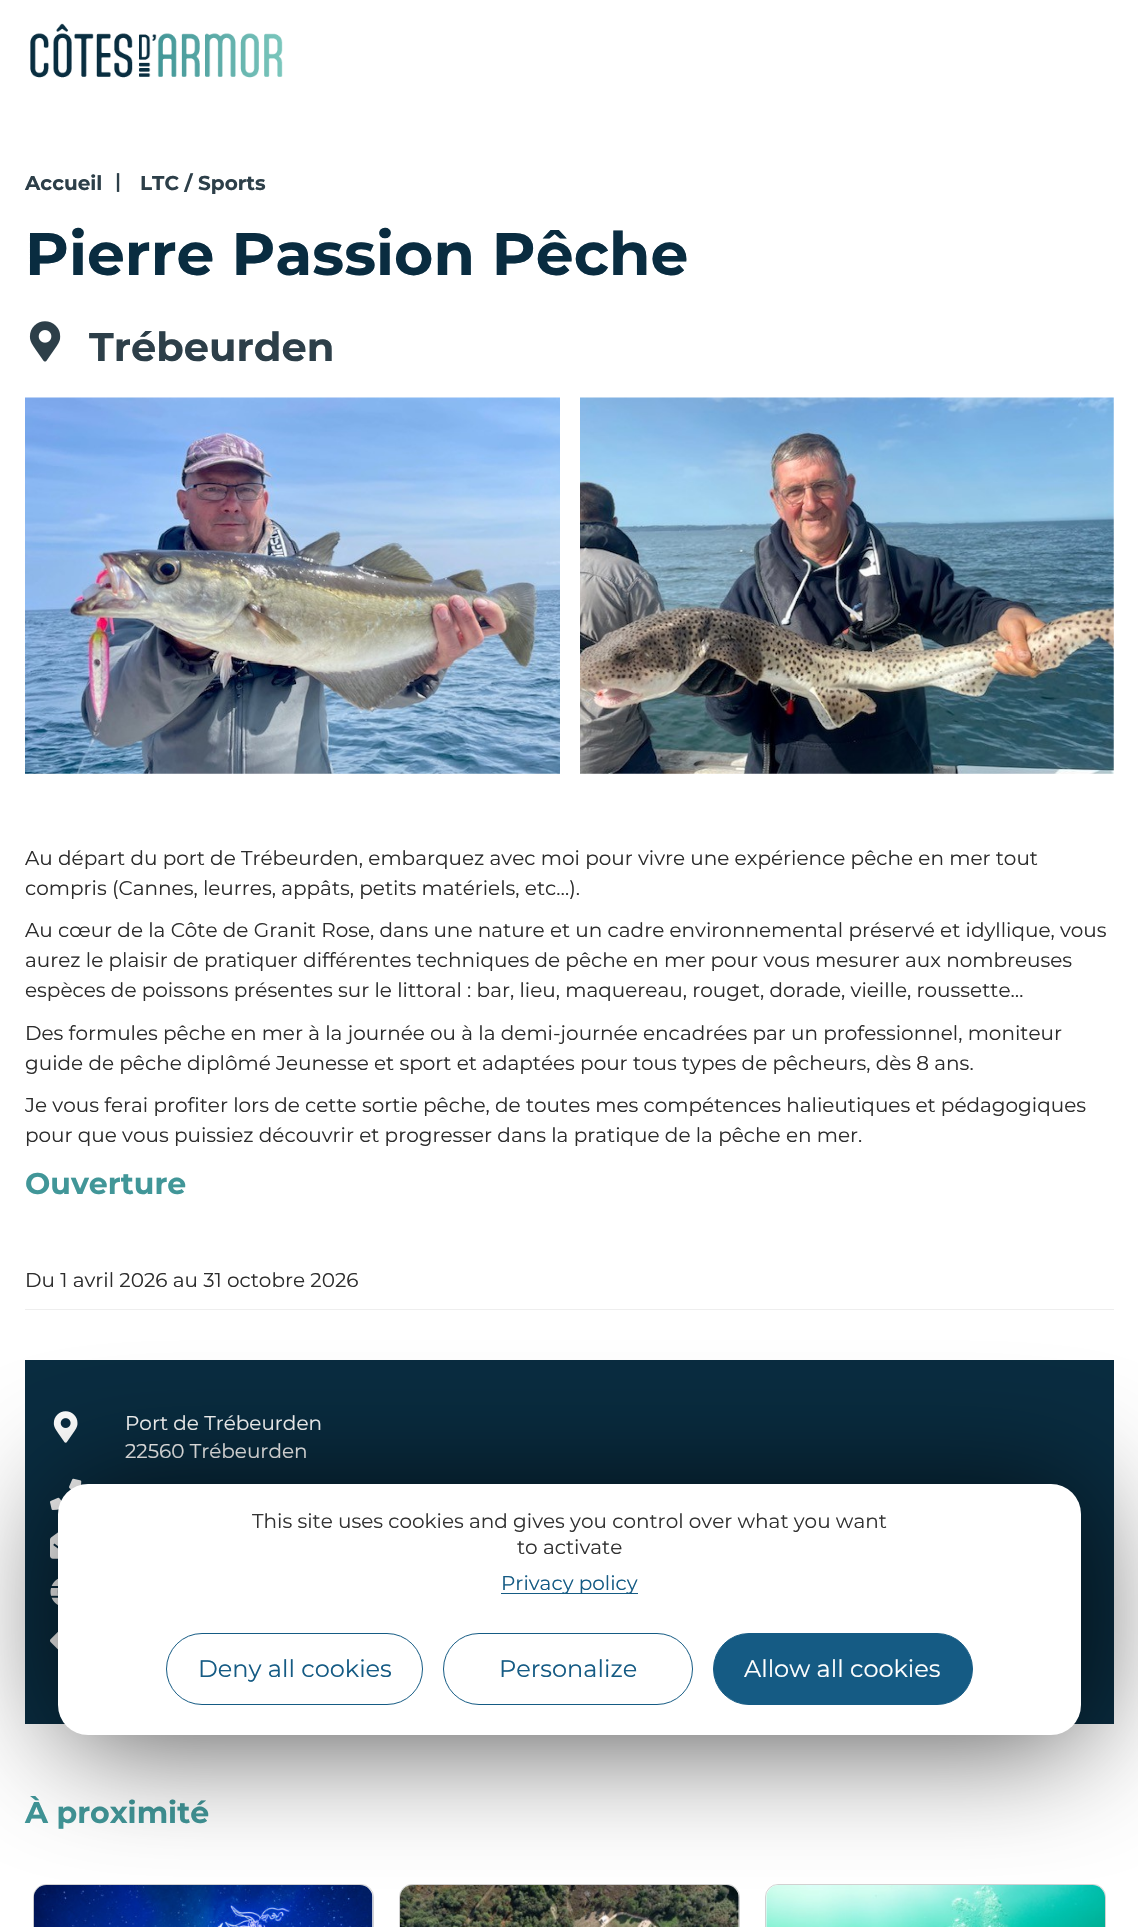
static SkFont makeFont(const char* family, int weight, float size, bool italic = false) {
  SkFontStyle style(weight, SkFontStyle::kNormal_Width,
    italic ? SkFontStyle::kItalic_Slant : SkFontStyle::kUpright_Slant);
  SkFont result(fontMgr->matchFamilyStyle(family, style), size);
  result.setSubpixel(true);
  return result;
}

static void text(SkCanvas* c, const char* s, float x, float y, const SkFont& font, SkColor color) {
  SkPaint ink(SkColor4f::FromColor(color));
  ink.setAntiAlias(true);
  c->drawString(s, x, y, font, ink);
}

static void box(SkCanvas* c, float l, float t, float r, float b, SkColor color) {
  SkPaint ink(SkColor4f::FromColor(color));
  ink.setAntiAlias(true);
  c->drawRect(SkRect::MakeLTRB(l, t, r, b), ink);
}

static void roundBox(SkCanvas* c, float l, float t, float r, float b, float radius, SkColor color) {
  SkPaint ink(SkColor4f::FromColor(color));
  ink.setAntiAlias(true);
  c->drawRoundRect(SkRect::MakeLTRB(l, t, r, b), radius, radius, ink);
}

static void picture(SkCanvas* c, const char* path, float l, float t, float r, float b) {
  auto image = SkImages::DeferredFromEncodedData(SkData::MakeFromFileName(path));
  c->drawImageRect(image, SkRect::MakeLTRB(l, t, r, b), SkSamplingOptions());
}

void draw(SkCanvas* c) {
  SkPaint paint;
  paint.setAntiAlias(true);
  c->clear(0xffffffff);
  picture(c, "img_01.png", 30, 23, 283, 78);
  SkFont face1 = makeFont("Montserrat", 700, 20);
  text(c, "Accueil", 25, 190, face1, 0xff2d3f49);
  SkFont face2 = makeFont("Montserrat", 600, 20);
  text(c, "|", 115, 188, face2, 0xff2d3f49);
  text(c, "LTC / Sports", 140, 190, face1, 0xff2d3f49);
  SkFont face3 = makeFont("Montserrat", 700, 60);
  text(c, "Pierre Passion Pêche", 25, 275, face3, 0xff092c40);
  picture(c, "img_02.png", 29, 321, 61, 362);
  SkFont face4 = makeFont("Montserrat", 700, 40);
  text(c, "Trébeurden", 89, 361, face4, 0xff2d3f49);
  picture(c, "img_03.png", 25, 397, 560, 774);
  picture(c, "img_04.png", 580, 397, 1114, 774);
  SkFont face5 = makeFont("Montserrat", 400, 20);
  text(c, "Au départ du port de Trébeurden, embarquez avec moi pour vivre une expérience pêche en mer tout", 25, 865, face5, 0xff2d2d2d);
  text(c, "compris (Cannes, leurres, appâts, petits matériels, etc…).", 25, 895, face5, 0xff2d2d2d);
  text(c, "Au cœur de la Côte de Granit Rose, dans une nature et un cadre environnemental préservé et idyllique, vous", 25, 937, face5, 0xff2d2d2d);
  text(c, "aurez le plaisir de pratiquer différentes techniques de pêche en mer pour vous mesurer aux nombreuses", 25, 967, face5, 0xff2d2d2d);
  text(c, "espèces de poissons présentes sur le littoral : bar, lieu, maquereau, rouget, dorade, vieille, roussette…", 25, 997, face5, 0xff2d2d2d);
  text(c, "Des formules pêche en mer à la journée ou à la demi-journée encadrées par un professionnel, moniteur", 25, 1040, face5, 0xff2d2d2d);
  text(c, "guide de pêche diplômé Jeunesse et sport et adaptées pour tous types de pêcheurs, dès 8 ans.", 25, 1070, face5, 0xff2d2d2d);
  text(c, "Je vous ferai profiter lors de cette sortie pêche, de toutes mes compétences halieutiques et pédagogiques", 25, 1112, face5, 0xff2d2d2d);
  text(c, "pour que vous puissiez découvrir et progresser dans la pratique de la pêche en mer.", 25, 1142, face5, 0xff2d2d2d);
  SkFont face6 = makeFont("Montserrat", 700, 30);
  text(c, "Ouverture", 25, 1194, face6, 0xff419698);
  box(c, 25, 1309, 1114, 1310, 0xffeeeeee);
  text(c, "Du 1 avril 2026 au 31 octobre 2026", 25, 1287, face5, 0xff2d2d2d);
  box(c, 25, 1360, 1114, 1724, 0xff092c40);
  picture(c, "img_05.png", 53, 1411, 78, 1443);
  text(c, "Port de Trébeurden", 125, 1430, face5, 0xffffffff);
  text(c, "22560 Trébeurden", 125, 1458, face5, 0xffffffff);
  picture(c, "img_06.png", 50, 1478, 82, 1510);
  picture(c, "img_07.png", 50, 1532, 58, 1559);
  picture(c, "img_08.png", 50, 1578, 58, 1605);
  picture(c, "img_09.png", 50, 1631, 58, 1650);
  text(c, "À proximité", 25, 1823, face6, 0xff419698);
  paint.setStyle(SkPaint::kStroke_Style);
  paint.setStrokeWidth(1);
  paint.setColor(0xffd2d2d2);
  c->drawRoundRect(SkRect::MakeLTRB(33.5f, 1884.5f, 373.5f, 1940.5f), 12.5f, 12.5f, paint);
  picture(c, "img_10.png", 33, 1885, 373, 1927);
  c->drawRoundRect(SkRect::MakeLTRB(399.5f, 1884.5f, 739.5f, 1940.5f), 12.5f, 12.5f, paint);
  picture(c, "img_11.png", 400, 1885, 739, 1927);
  c->drawRoundRect(SkRect::MakeLTRB(765.5f, 1884.5f, 1105.5f, 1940.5f), 12.5f, 12.5f, paint);
  picture(c, "img_12.png", 766, 1885, 1105, 1927);
  paint.setStyle(SkPaint::kFill_Style);
  paint.setColor(0xb3000000);
  paint.setMaskFilter(SkMaskFilter::MakeBlur(kNormal_SkBlurStyle, 62.5f));
  c->drawRoundRect(SkRect::MakeLTRB(63, 1489, 1086, 1740), 30, 30, paint);
  paint.setMaskFilter(nullptr);
  roundBox(c, 58, 1484, 1081, 1735, 30, 0xffffffff);
  text(c, "This site uses cookies and gives you control over what you want", 252, 1528, face5, 0xff333333);
  text(c, "to activate", 517, 1554, face5, 0xff333333);
  box(c, 501, 1593, 638, 1594, 0xff155b84);
  text(c, "Privacy policy", 501, 1590, face5, 0xff155b84);
  paint.setStyle(SkPaint::kStroke_Style);
  paint.setColor(0xff155b84);
  c->drawRoundRect(SkRect::MakeLTRB(166.5f, 1633.5f, 422.5f, 1704.5f), 35.5f, 35.5f, paint);
  SkFont face7 = makeFont("Montserrat", 400, 24);
  text(c, "Deny all cookies", 198, 1677, face7, 0xff155b84);
  c->drawRoundRect(SkRect::MakeLTRB(443.5f, 1633.5f, 692.5f, 1704.5f), 35.5f, 35.5f, paint);
  text(c, "Personalize", 499, 1677, face7, 0xff155b84);
  paint.setStyle(SkPaint::kFill_Style);
  c->drawRoundRect(SkRect::MakeLTRB(713.5f, 1633.5f, 972.5f, 1704.5f), 35.5f, 35.5f, paint);
  paint.setStyle(SkPaint::kStroke_Style);
  c->drawRoundRect(SkRect::MakeLTRB(713.5f, 1633.5f, 972.5f, 1704.5f), 35.5f, 35.5f, paint);
  text(c, "Allow all cookies", 744, 1677, face7, 0xffffffff);
}
